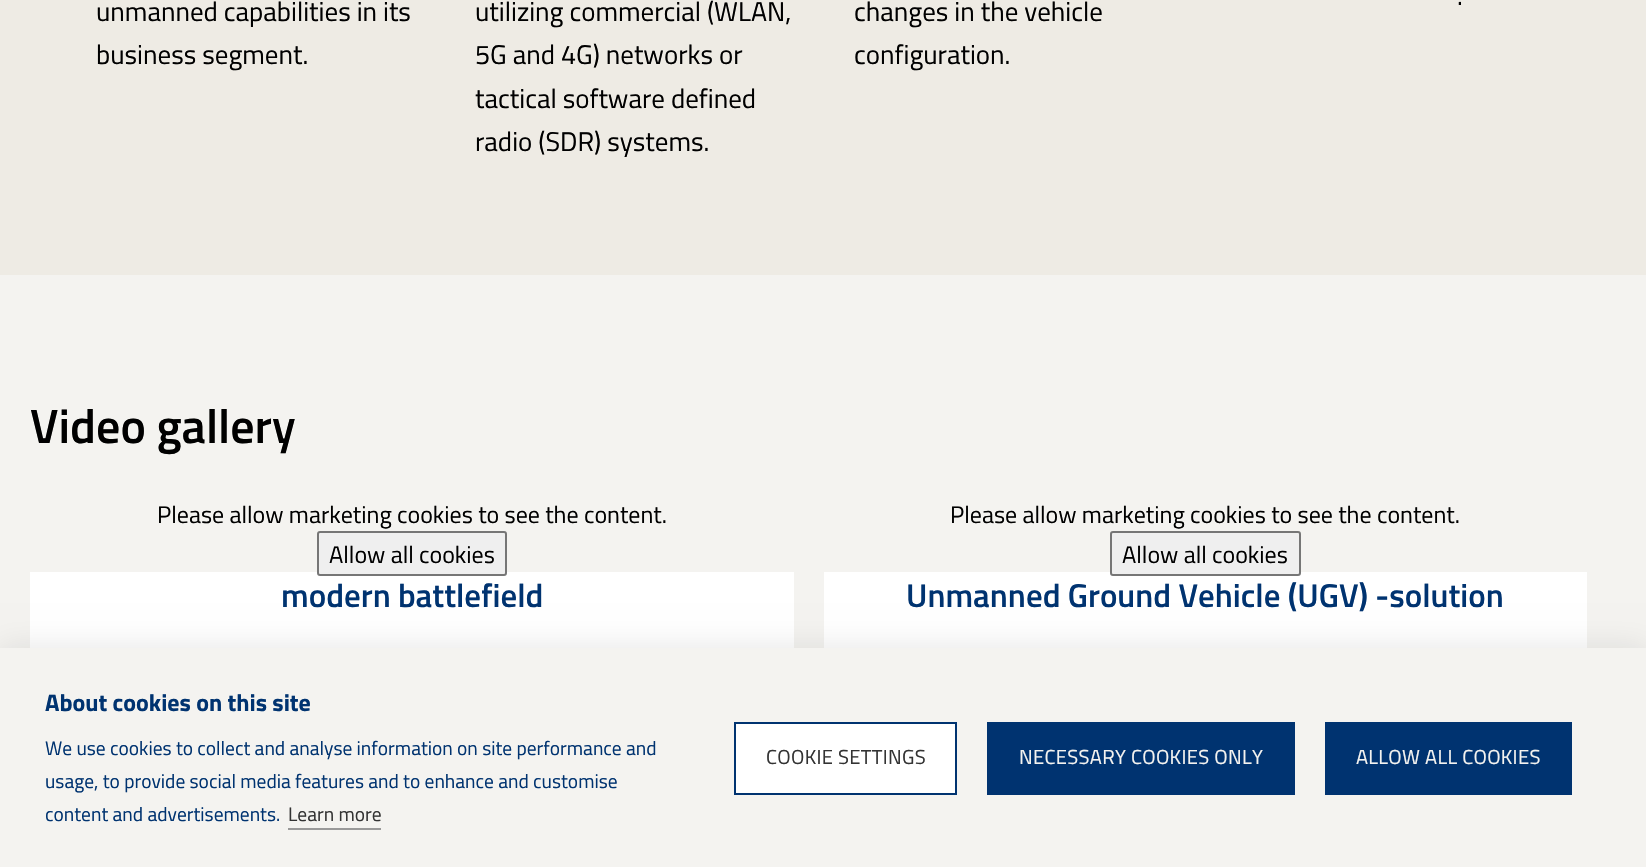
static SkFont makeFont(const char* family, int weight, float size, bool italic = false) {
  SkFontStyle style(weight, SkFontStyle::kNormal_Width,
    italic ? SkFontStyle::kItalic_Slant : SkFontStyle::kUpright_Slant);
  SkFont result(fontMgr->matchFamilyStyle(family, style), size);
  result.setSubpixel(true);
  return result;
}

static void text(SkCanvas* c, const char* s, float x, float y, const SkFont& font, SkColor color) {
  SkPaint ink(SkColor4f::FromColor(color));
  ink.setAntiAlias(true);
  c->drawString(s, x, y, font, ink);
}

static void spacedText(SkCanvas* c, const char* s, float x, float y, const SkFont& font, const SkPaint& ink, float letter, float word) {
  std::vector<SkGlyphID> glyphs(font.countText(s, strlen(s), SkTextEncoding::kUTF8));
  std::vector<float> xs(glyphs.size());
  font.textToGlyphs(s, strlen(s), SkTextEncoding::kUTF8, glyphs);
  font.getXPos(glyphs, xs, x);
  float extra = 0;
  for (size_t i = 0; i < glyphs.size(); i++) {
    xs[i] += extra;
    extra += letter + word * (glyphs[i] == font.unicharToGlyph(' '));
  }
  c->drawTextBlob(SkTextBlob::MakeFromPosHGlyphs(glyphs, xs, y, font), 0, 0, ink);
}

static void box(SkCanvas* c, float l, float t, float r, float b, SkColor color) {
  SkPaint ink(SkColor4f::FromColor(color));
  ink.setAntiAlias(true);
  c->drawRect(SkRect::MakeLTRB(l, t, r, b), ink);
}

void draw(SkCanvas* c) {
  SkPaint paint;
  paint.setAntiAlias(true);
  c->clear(0xfff4f3f0);
  box(c, 0, 0, 1646, 275, 0xffeeebe4);
  SkFont face1 = makeFont("Titillium Web", 400, 27);
  text(c, "unmanned capabilities in its", 96, 21, face1, 0xff000000);
  text(c, "business segment.", 96, 64, face1, 0xff000000);
  text(c, "utilizing commercial (WLAN,", 475, 21, face1, 0xff000000);
  text(c, "5G and 4G) networks or", 475, 64, face1, 0xff000000);
  text(c, "tactical software defined", 475, 108, face1, 0xff000000);
  text(c, "radio (SDR) systems.", 475, 151, face1, 0xff000000);
  text(c, "changes in the vehicle", 854, 21, face1, 0xff000000);
  text(c, "configuration.", 854, 64, face1, 0xff000000);
  text(c, ".", 1457, 5, face1, 0xff000000);
  SkFont face2 = makeFont("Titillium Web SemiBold", 600, 48);
  text(c, "Video gallery", 30, 443, face2, 0xff000000);
  SkFont face3 = makeFont("Titillium Web", 400, 24);
  text(c, "Please allow marketing cookies to see the content.", 157, 523, face3, 0xff000000);
  box(c, 30, 572, 794, 648, 0xffffffff);
  paint.setColor(0xffefefef);
  c->drawRoundRect(SkRect::MakeLTRB(318, 532, 506, 575), 2, 2, paint);
  paint.setStyle(SkPaint::kStroke_Style);
  paint.setStrokeWidth(2);
  paint.setColor(0xff767676);
  c->drawRoundRect(SkRect::MakeLTRB(318, 532, 506, 575), 2, 2, paint);
  text(c, "Allow all cookies", 329, 563, face3, 0xff000000);
  SkFont face4 = makeFont("Titillium Web SemiBold", 600, 33);
  text(c, "modern battlefield", 281, 607, face4, 0xff003370);
  text(c, "Please allow marketing cookies to see the content.", 950, 523, face3, 0xff000000);
  box(c, 824, 572, 1587, 648, 0xffffffff);
  paint.setStyle(SkPaint::kFill_Style);
  paint.setColor(0xffefefef);
  c->drawRoundRect(SkRect::MakeLTRB(1111, 532, 1300, 575), 2, 2, paint);
  paint.setStyle(SkPaint::kStroke_Style);
  paint.setColor(0xff767676);
  c->drawRoundRect(SkRect::MakeLTRB(1111, 532, 1300, 575), 2, 2, paint);
  text(c, "Allow all cookies", 1122, 563, face3, 0xff000000);
  text(c, "Unmanned Ground Vehicle (UGV) -solution", 906, 607, face4, 0xff003370);
  paint.setStyle(SkPaint::kFill_Style);
  paint.setColor(0x1a000000);
  paint.setMaskFilter(SkMaskFilter::MakeBlur(kNormal_SkBlurStyle, 15));
  c->drawRect(SkRect::MakeLTRB(0, 648, 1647, 867), paint);
  paint.setMaskFilter(nullptr);
  box(c, 0, 648, 1646, 867, 0xfff4f3f0);
  SkFont face5 = makeFont("Titillium Web", 700, 24);
  text(c, "About cookies on this site", 45, 711, face5, 0xff003370);
  SkFont face6 = makeFont("Titillium Web", 400, 19.5f);
  text(c, "We use cookies to collect and analyse information on site performance and", 45, 755, face6, 0xff003370);
  text(c, "usage, to provide social media features and to enhance and customise", 45, 788, face6, 0xff003370);
  text(c, "content and advertisements.", 45, 821, face6, 0xff003370);
  text(c, "Learn more", 288, 821, face6, 0xff333333);
  box(c, 288, 828, 381, 830, 0xff999999);
  paint.setColor(0xffffffff);
  c->drawRect(SkRect::MakeLTRB(735, 723, 956, 794), paint);
  paint.setStyle(SkPaint::kStroke_Style);
  paint.setColor(0xff003370);
  c->drawRect(SkRect::MakeLTRB(735, 723, 956, 794), paint);
  SkFont face7 = makeFont("Titillium Web", 400, 20.25f);
  paint.setStyle(SkPaint::kFill_Style);
  paint.setColor(0xff333333);
  spacedText(c, "COOKIE SETTINGS", 766, 764, face7, paint, 0.3f, 0);
  box(c, 987, 722, 1295, 795, 0xff003370);
  paint.setColor(0xfff4f3f0);
  spacedText(c, "NECESSARY COOKIES ONLY", 1019, 764, face7, paint, 0.3f, 0);
  box(c, 1325, 722, 1572, 795, 0xff003370);
  spacedText(c, "ALLOW ALL COOKIES", 1356, 764, face7, paint, 0.3f, 0);
}
